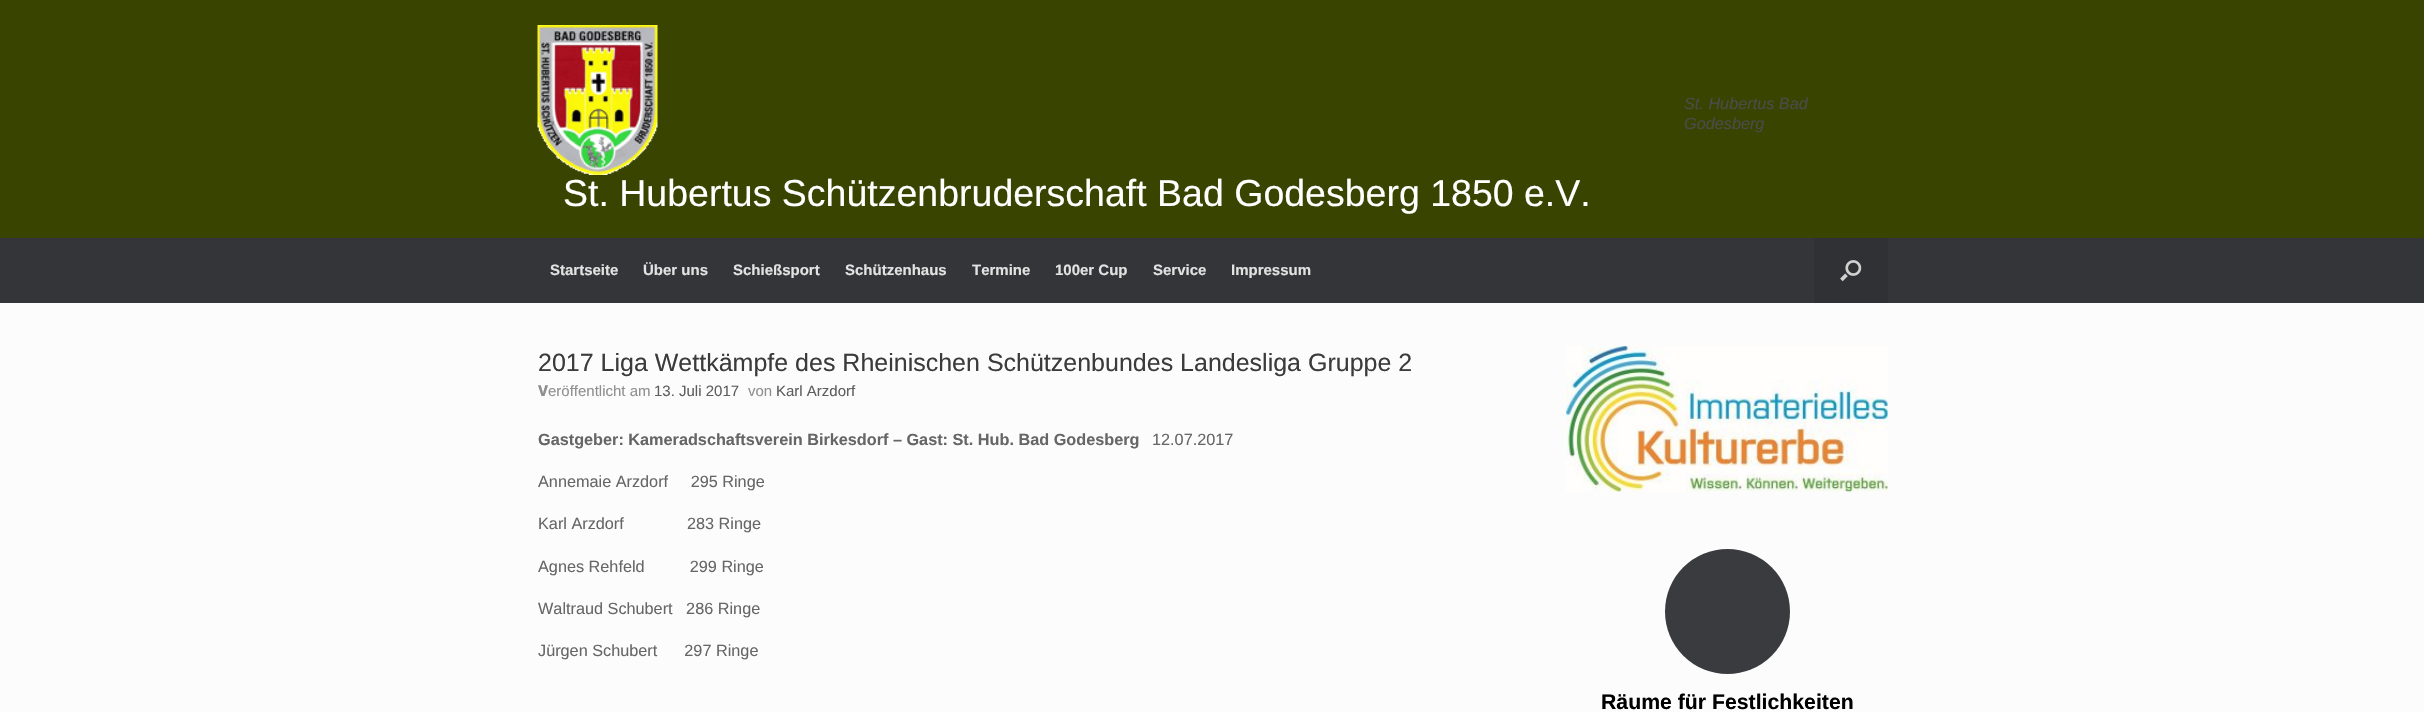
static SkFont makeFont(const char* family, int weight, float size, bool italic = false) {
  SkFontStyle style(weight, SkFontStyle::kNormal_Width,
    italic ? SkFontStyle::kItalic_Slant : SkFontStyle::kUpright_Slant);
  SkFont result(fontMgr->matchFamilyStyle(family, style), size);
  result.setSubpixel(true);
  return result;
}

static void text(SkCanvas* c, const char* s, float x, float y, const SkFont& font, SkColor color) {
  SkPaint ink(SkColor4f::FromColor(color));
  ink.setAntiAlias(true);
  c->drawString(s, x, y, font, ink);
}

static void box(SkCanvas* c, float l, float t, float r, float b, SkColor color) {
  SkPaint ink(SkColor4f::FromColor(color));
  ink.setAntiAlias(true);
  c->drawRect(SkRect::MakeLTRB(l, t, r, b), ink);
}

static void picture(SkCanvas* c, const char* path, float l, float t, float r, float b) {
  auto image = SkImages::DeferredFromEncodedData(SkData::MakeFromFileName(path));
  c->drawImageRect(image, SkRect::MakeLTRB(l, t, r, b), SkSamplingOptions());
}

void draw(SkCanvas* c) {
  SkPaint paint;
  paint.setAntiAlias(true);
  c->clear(0xff384400);
  SkFont face1 = makeFont("Liberation Sans", 400, 16.25f, true);
  text(c, "St. Hubertus Bad", 1684, 109, face1, 0xff4b4b4b);
  text(c, "Godesberg", 1684, 129, face1, 0xff4b4b4b);
  picture(c, "img_01.png", 537, 25, 658, 175);
  SkFont face2 = makeFont("Liberation Sans", 400, 37.5f);
  text(c, "St. Hubertus Schützenbruderschaft Bad Godesberg 1850 e.V.", 563, 206, face2, 0xffffffff);
  box(c, 0, 238, 2424, 303, 0xff343538);
  SkFont face3 = makeFont("Liberation Sans", 700, 15);
  text(c, "Startseite", 550, 275, face3, 0xffe2e2e2);
  text(c, "Über uns", 643, 275, face3, 0xffe2e2e2);
  text(c, "Schießsport", 733, 275, face3, 0xffe2e2e2);
  text(c, "Schützenhaus", 845, 275, face3, 0xffe2e2e2);
  text(c, "Termine", 972, 275, face3, 0xffe2e2e2);
  text(c, "100er Cup", 1055, 275, face3, 0xffe2e2e2);
  text(c, "Service", 1153, 275, face3, 0xffe2e2e2);
  text(c, "Impressum", 1231, 275, face3, 0xffe2e2e2);
  box(c, 1814, 238, 1888, 303, 0xff303134);
  picture(c, "img_02.png", 1840, 260, 1862, 282);
  box(c, 0, 303, 2424, 712, 0xfffcfcfc);
  SkFont face4 = makeFont("Liberation Sans", 400, 25);
  text(c, "2017 Liga Wettkämpfe des Rheinischen Schützenbundes Landesliga Gruppe 2", 538, 371, face4, 0xff3b3b3b);
  SkFont face5 = makeFont("Noto Sans", 800, 15);
  text(c, "V", 538, 396, face5, 0xff8f8f8f);
  SkFont face6 = makeFont("Liberation Sans", 400, 15);
  text(c, "eröffentlicht am", 548, 396, face6, 0xff8f8f8f);
  text(c, "13. Juli 2017", 654, 396, face6, 0xff5e5e5e);
  text(c, "von", 748, 396, face6, 0xff8f8f8f);
  text(c, "Karl Arzdorf", 776, 396, face6, 0xff5e5e5e);
  SkFont face7 = makeFont("Liberation Sans", 700, 16.25f);
  text(c, "Gastgeber: Kameradschaftsverein Birkesdorf – Gast: St. Hub. Bad Godesberg", 538, 445, face7, 0xff666666);
  SkFont face8 = makeFont("Liberation Sans", 400, 16.25f);
  text(c, "12.07.2017", 1152, 445, face8, 0xff666666);
  text(c, "Annemaie Arzdorf     295 Ringe", 538, 487, face8, 0xff666666);
  text(c, "Karl Arzdorf              283 Ringe", 538, 529, face8, 0xff666666);
  text(c, "Agnes Rehfeld          299 Ringe", 538, 572, face8, 0xff666666);
  text(c, "Waltraud Schubert   286 Ringe", 538, 614, face8, 0xff666666);
  text(c, "Jürgen Schubert      297 Ringe", 538, 656, face8, 0xff666666);
  picture(c, "img_03.png", 1566, 346, 1888, 492);
  paint.setColor(0xff3a3b3e);
  c->drawCircle(1727.5f, 611.5f, 62.5f, paint);
  SkFont face9 = makeFont("Liberation Sans", 700, 21.25f);
  text(c, "Räume für Festlichkeiten", 1601, 709, face9, 0xff000000);
}
